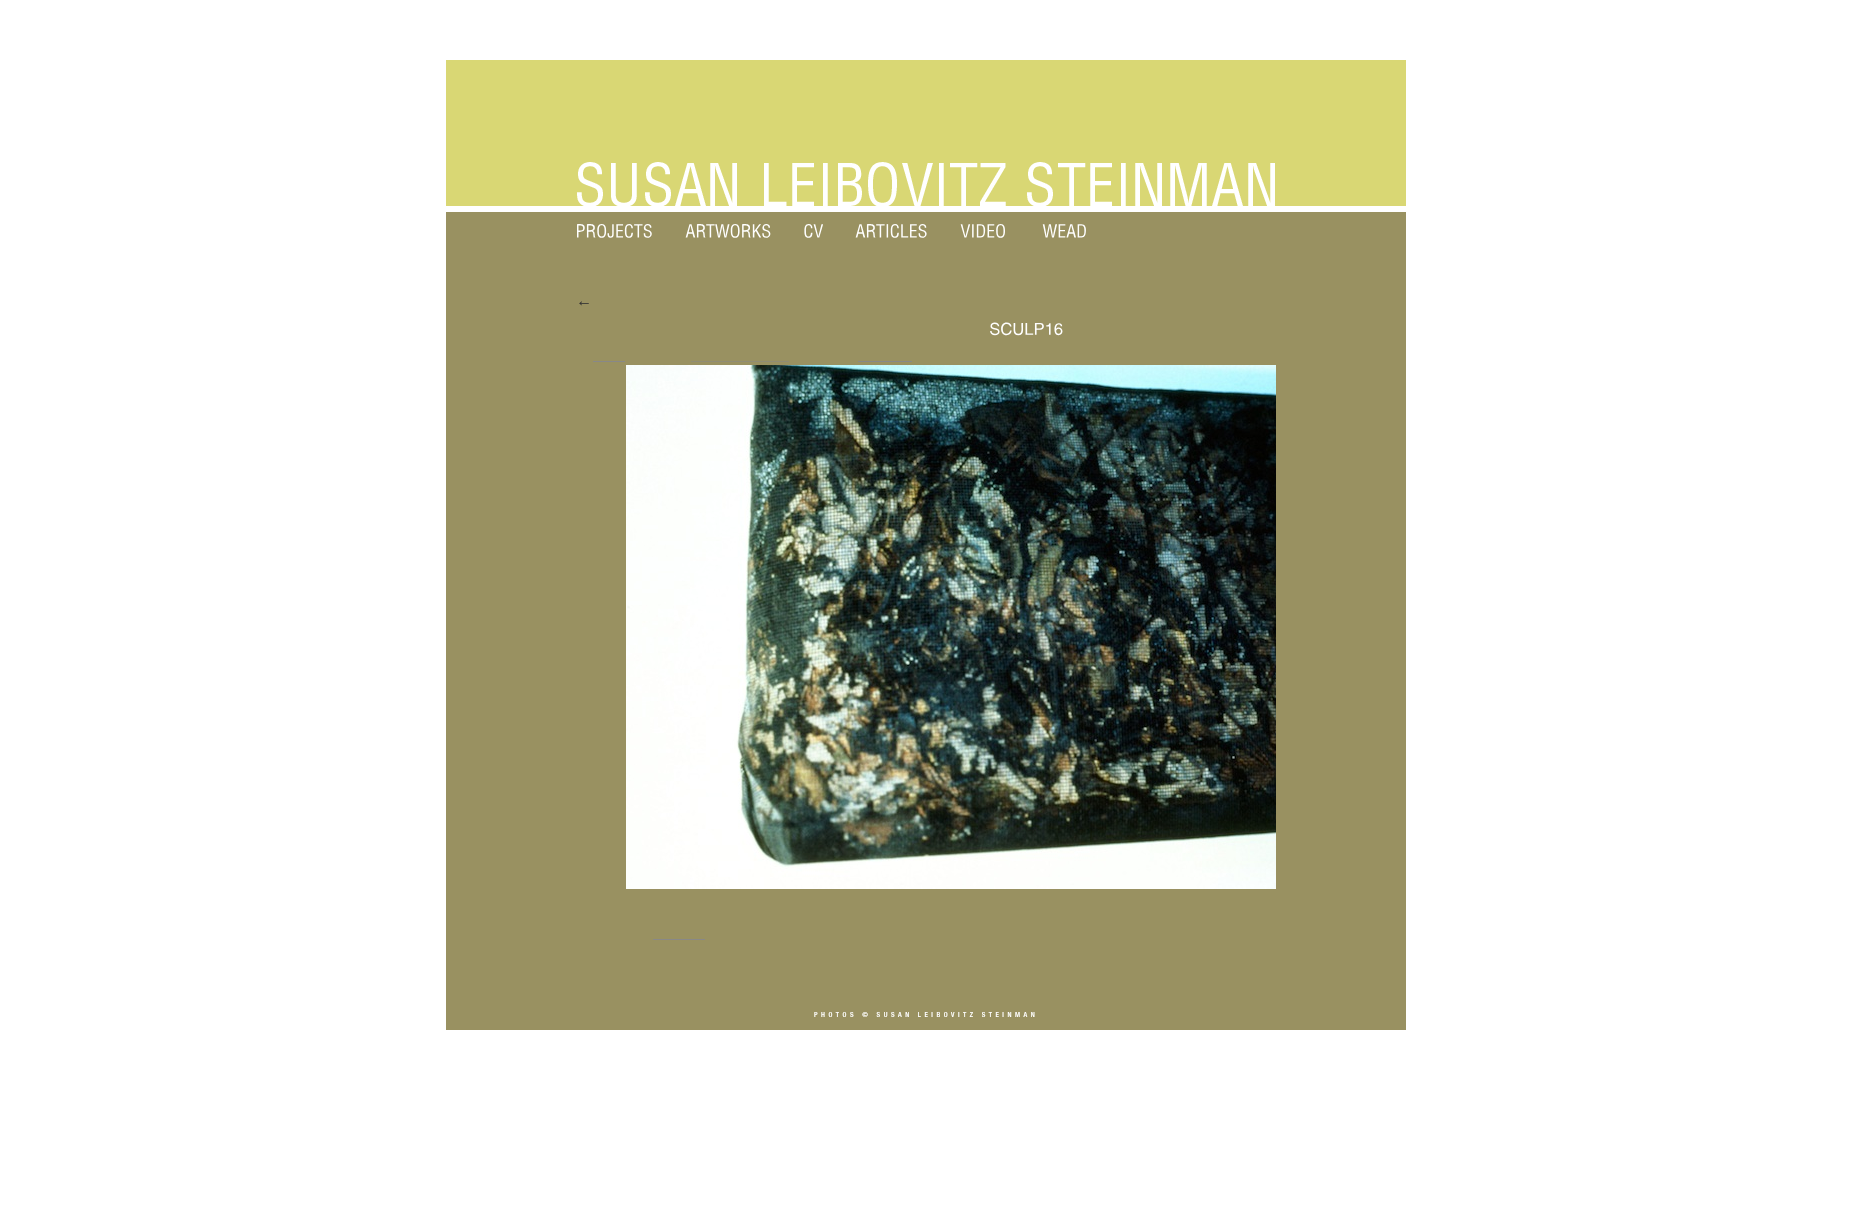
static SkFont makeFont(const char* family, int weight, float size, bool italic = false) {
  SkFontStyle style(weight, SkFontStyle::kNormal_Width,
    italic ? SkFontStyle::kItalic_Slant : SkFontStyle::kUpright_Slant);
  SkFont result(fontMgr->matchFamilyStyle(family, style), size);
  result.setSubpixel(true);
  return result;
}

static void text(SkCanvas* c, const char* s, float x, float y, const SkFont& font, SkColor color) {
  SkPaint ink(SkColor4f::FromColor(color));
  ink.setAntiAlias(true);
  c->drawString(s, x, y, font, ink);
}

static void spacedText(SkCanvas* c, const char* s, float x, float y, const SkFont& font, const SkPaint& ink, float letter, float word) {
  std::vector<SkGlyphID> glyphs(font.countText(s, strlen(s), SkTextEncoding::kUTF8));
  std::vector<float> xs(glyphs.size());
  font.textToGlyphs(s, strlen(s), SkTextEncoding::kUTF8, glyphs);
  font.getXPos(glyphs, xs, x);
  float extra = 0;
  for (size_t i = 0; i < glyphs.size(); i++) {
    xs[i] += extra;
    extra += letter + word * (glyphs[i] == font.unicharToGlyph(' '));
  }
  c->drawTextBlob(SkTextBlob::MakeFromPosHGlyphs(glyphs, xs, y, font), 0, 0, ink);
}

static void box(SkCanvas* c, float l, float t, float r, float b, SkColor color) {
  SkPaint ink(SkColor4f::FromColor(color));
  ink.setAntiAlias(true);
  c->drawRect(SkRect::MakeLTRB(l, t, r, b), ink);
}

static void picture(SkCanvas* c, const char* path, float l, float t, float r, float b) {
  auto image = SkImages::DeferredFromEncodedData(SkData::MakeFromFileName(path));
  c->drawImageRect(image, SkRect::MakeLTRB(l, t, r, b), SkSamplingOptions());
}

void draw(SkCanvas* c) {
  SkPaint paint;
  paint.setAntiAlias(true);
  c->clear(0xffffffff);
  box(c, 446, 212, 1406, 1030, 0xff999161);
  box(c, 446, 60, 1406, 206, 0xffd9d774);
  picture(c, "img_01.png", 577, 162, 1275, 206);
  picture(c, "img_02.png", 577, 224, 652, 238);
  picture(c, "img_03.png", 685, 224, 771, 238);
  picture(c, "img_04.png", 804, 224, 823, 238);
  picture(c, "img_05.png", 855, 224, 927, 238);
  picture(c, "img_06.png", 960, 224, 1005, 238);
  picture(c, "img_07.png", 1042, 224, 1086, 238);
  SkFont face1 = makeFont("Liberation Sans", 400, 16, true);
  text(c, "←", 576, 306, face1, 0xff333333);
  picture(c, "img_08.png", 990, 322, 1063, 336);
  box(c, 593, 361, 625, 362, 0xff888888);
  paint.setStyle(SkPaint::kStroke_Style);
  paint.setStrokeWidth(1);
  paint.setColor(0xff888888);
  paint.setPathEffect(SkDashPathEffect::Make({{1, 1}}, 0));
  c->drawPath(SkPathBuilder().moveTo(691.5f, 361.5f).lineTo(789.5f, 361.5f).detach(), paint);
  paint.setPathEffect(nullptr);
  box(c, 858, 361, 912, 362, 0xff888888);
  picture(c, "img_09.png", 626, 365, 1276, 889);
  box(c, 653, 939, 705, 940, 0xff888888);
  SkFont face2 = makeFont("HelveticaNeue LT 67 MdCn", 500, 7);
  paint.setStyle(SkPaint::kFill_Style);
  paint.setColor(0xffffffff);
  spacedText(c, "PHOTOS © SUSAN LEIBOVITZ STEINMAN", 814, 1017, face2, paint, 3.5f, 0);
}
